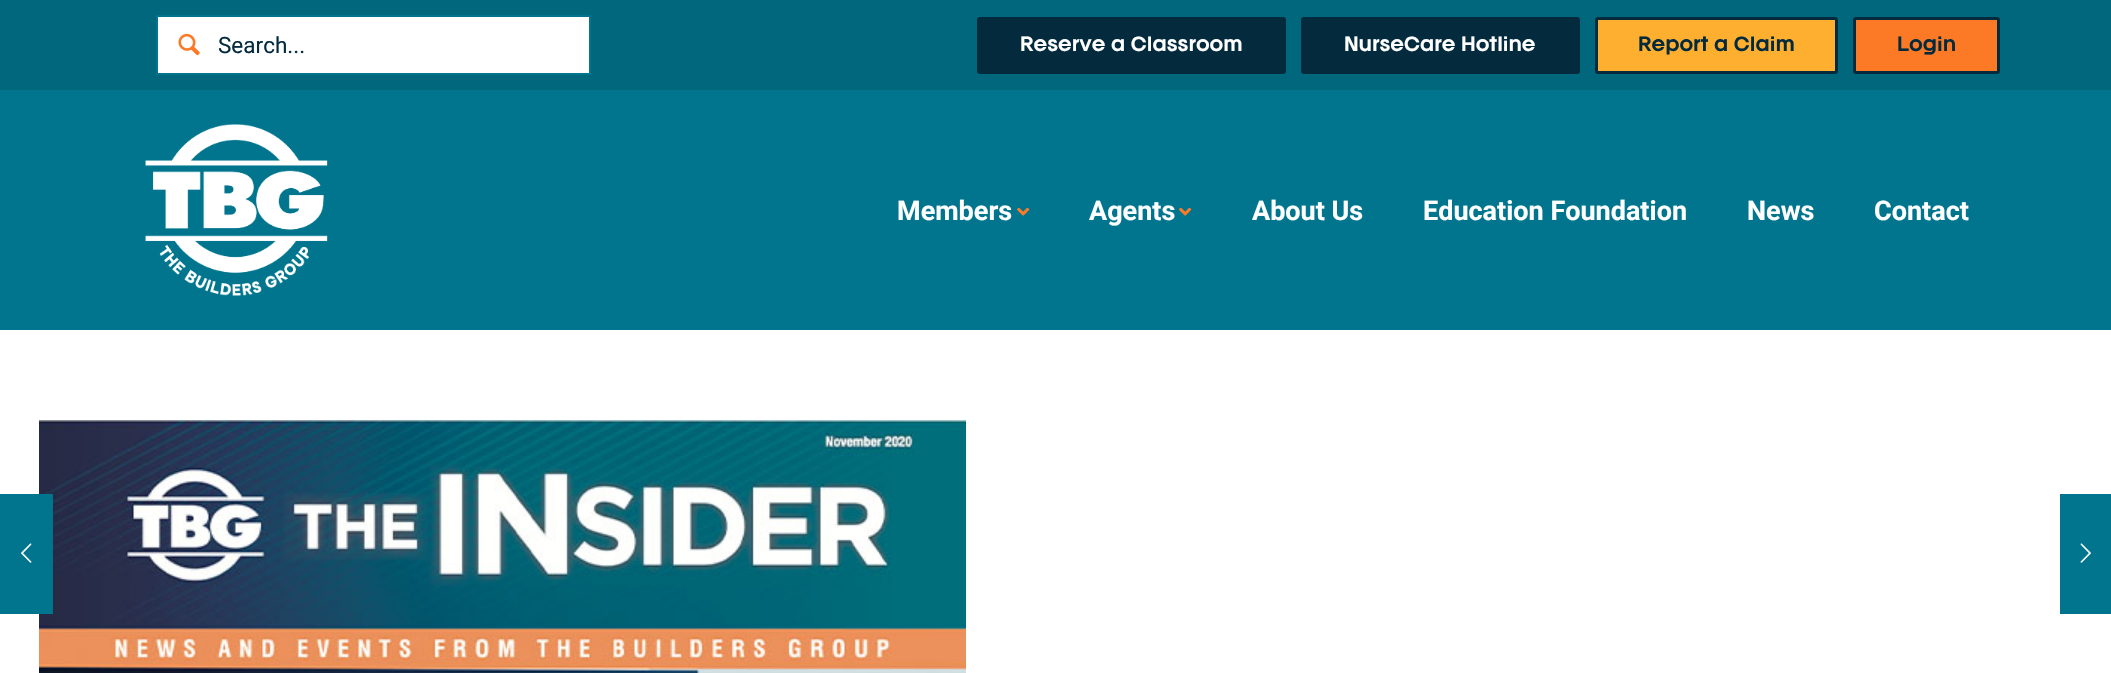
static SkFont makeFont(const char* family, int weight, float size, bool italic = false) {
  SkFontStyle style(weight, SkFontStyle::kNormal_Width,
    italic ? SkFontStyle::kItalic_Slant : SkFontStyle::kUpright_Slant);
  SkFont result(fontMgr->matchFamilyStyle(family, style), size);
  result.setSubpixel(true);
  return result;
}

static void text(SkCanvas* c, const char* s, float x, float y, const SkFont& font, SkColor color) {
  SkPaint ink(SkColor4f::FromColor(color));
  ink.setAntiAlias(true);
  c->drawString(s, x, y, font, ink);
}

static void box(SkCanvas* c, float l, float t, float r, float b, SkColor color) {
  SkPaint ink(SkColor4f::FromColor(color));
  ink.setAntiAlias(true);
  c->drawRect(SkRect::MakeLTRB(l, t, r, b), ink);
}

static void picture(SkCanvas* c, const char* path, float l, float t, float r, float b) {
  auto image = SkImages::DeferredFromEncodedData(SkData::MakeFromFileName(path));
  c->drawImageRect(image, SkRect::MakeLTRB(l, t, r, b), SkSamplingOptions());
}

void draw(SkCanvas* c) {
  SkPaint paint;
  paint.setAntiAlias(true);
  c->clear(0xffffffff);
  box(c, 0, 0, 2111, 90, 0xff01677c);
  paint.setColor(0xffffffff);
  c->drawRect(SkRect::MakeLTRB(157, 16, 590, 74), paint);
  paint.setStyle(SkPaint::kStroke_Style);
  paint.setStrokeWidth(2);
  paint.setColor(0xff00758d);
  c->drawRect(SkRect::MakeLTRB(157, 16, 590, 74), paint);
  picture(c, "img_01.png", 178, 33, 200, 56);
  SkFont face1 = makeFont("Roboto", 400, 22.5f);
  text(c, "Search...", 218, 53, face1, 0xff032a3d);
  paint.setStyle(SkPaint::kFill_Style);
  paint.setColor(0xff032a3d);
  c->drawRoundRect(SkRect::MakeLTRB(978.5f, 18.5f, 1284.5f, 72.5f), 1.5f, 1.5f, paint);
  paint.setStyle(SkPaint::kStroke_Style);
  paint.setStrokeWidth(3);
  c->drawRoundRect(SkRect::MakeLTRB(978.5f, 18.5f, 1284.5f, 72.5f), 1.5f, 1.5f, paint);
  SkFont face2 = makeFont("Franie", 600, 18);
  text(c, "Reserve a Classroom", 1020, 51, face2, 0xffffffff);
  paint.setStyle(SkPaint::kFill_Style);
  c->drawRoundRect(SkRect::MakeLTRB(1302.5f, 18.5f, 1578.5f, 72.5f), 1.5f, 1.5f, paint);
  paint.setStyle(SkPaint::kStroke_Style);
  c->drawRoundRect(SkRect::MakeLTRB(1302.5f, 18.5f, 1578.5f, 72.5f), 1.5f, 1.5f, paint);
  text(c, "NurseCare Hotline", 1344, 51, face2, 0xffffffff);
  paint.setStyle(SkPaint::kFill_Style);
  paint.setColor(0xffffaf2f);
  c->drawRoundRect(SkRect::MakeLTRB(1596.5f, 18.5f, 1836.5f, 72.5f), 1.5f, 1.5f, paint);
  paint.setStyle(SkPaint::kStroke_Style);
  paint.setColor(0xff032a3d);
  c->drawRoundRect(SkRect::MakeLTRB(1596.5f, 18.5f, 1836.5f, 72.5f), 1.5f, 1.5f, paint);
  text(c, "Report a Claim", 1638, 51, face2, 0xff032a3d);
  paint.setStyle(SkPaint::kFill_Style);
  paint.setColor(0xfffc7a26);
  c->drawRoundRect(SkRect::MakeLTRB(1854.5f, 18.5f, 1998.5f, 72.5f), 1.5f, 1.5f, paint);
  paint.setStyle(SkPaint::kStroke_Style);
  paint.setColor(0xff032a3d);
  c->drawRoundRect(SkRect::MakeLTRB(1854.5f, 18.5f, 1998.5f, 72.5f), 1.5f, 1.5f, paint);
  text(c, "Login", 1897, 51, face2, 0xff032a3d);
  box(c, 0, 90, 2111, 330, 0xff00758d);
  picture(c, "img_02.png", 145, 124, 328, 296);
  SkFont face3 = makeFont("Roboto", 700, 27);
  text(c, "Members", 897, 220, face3, 0xffffffff);
  picture(c, "img_03.png", 1017, 207, 1030, 216);
  text(c, "Agents", 1089, 220, face3, 0xffffffff);
  picture(c, "img_03.png", 1179, 207, 1192, 216);
  text(c, "About Us", 1252, 220, face3, 0xffffffff);
  text(c, "Education Foundation", 1423, 220, face3, 0xffffffff);
  text(c, "News", 1747, 220, face3, 0xffffffff);
  text(c, "Contact", 1874, 220, face3, 0xffffffff);
  picture(c, "img_04.png", 39, 420, 966, 673);
  box(c, 0, 494, 53, 614, 0xff00758d);
  picture(c, "img_05.png", 21, 543, 32, 563);
  box(c, 2060, 494, 2111, 614, 0xff00758d);
  picture(c, "img_06.png", 2080, 543, 2091, 563);
}
